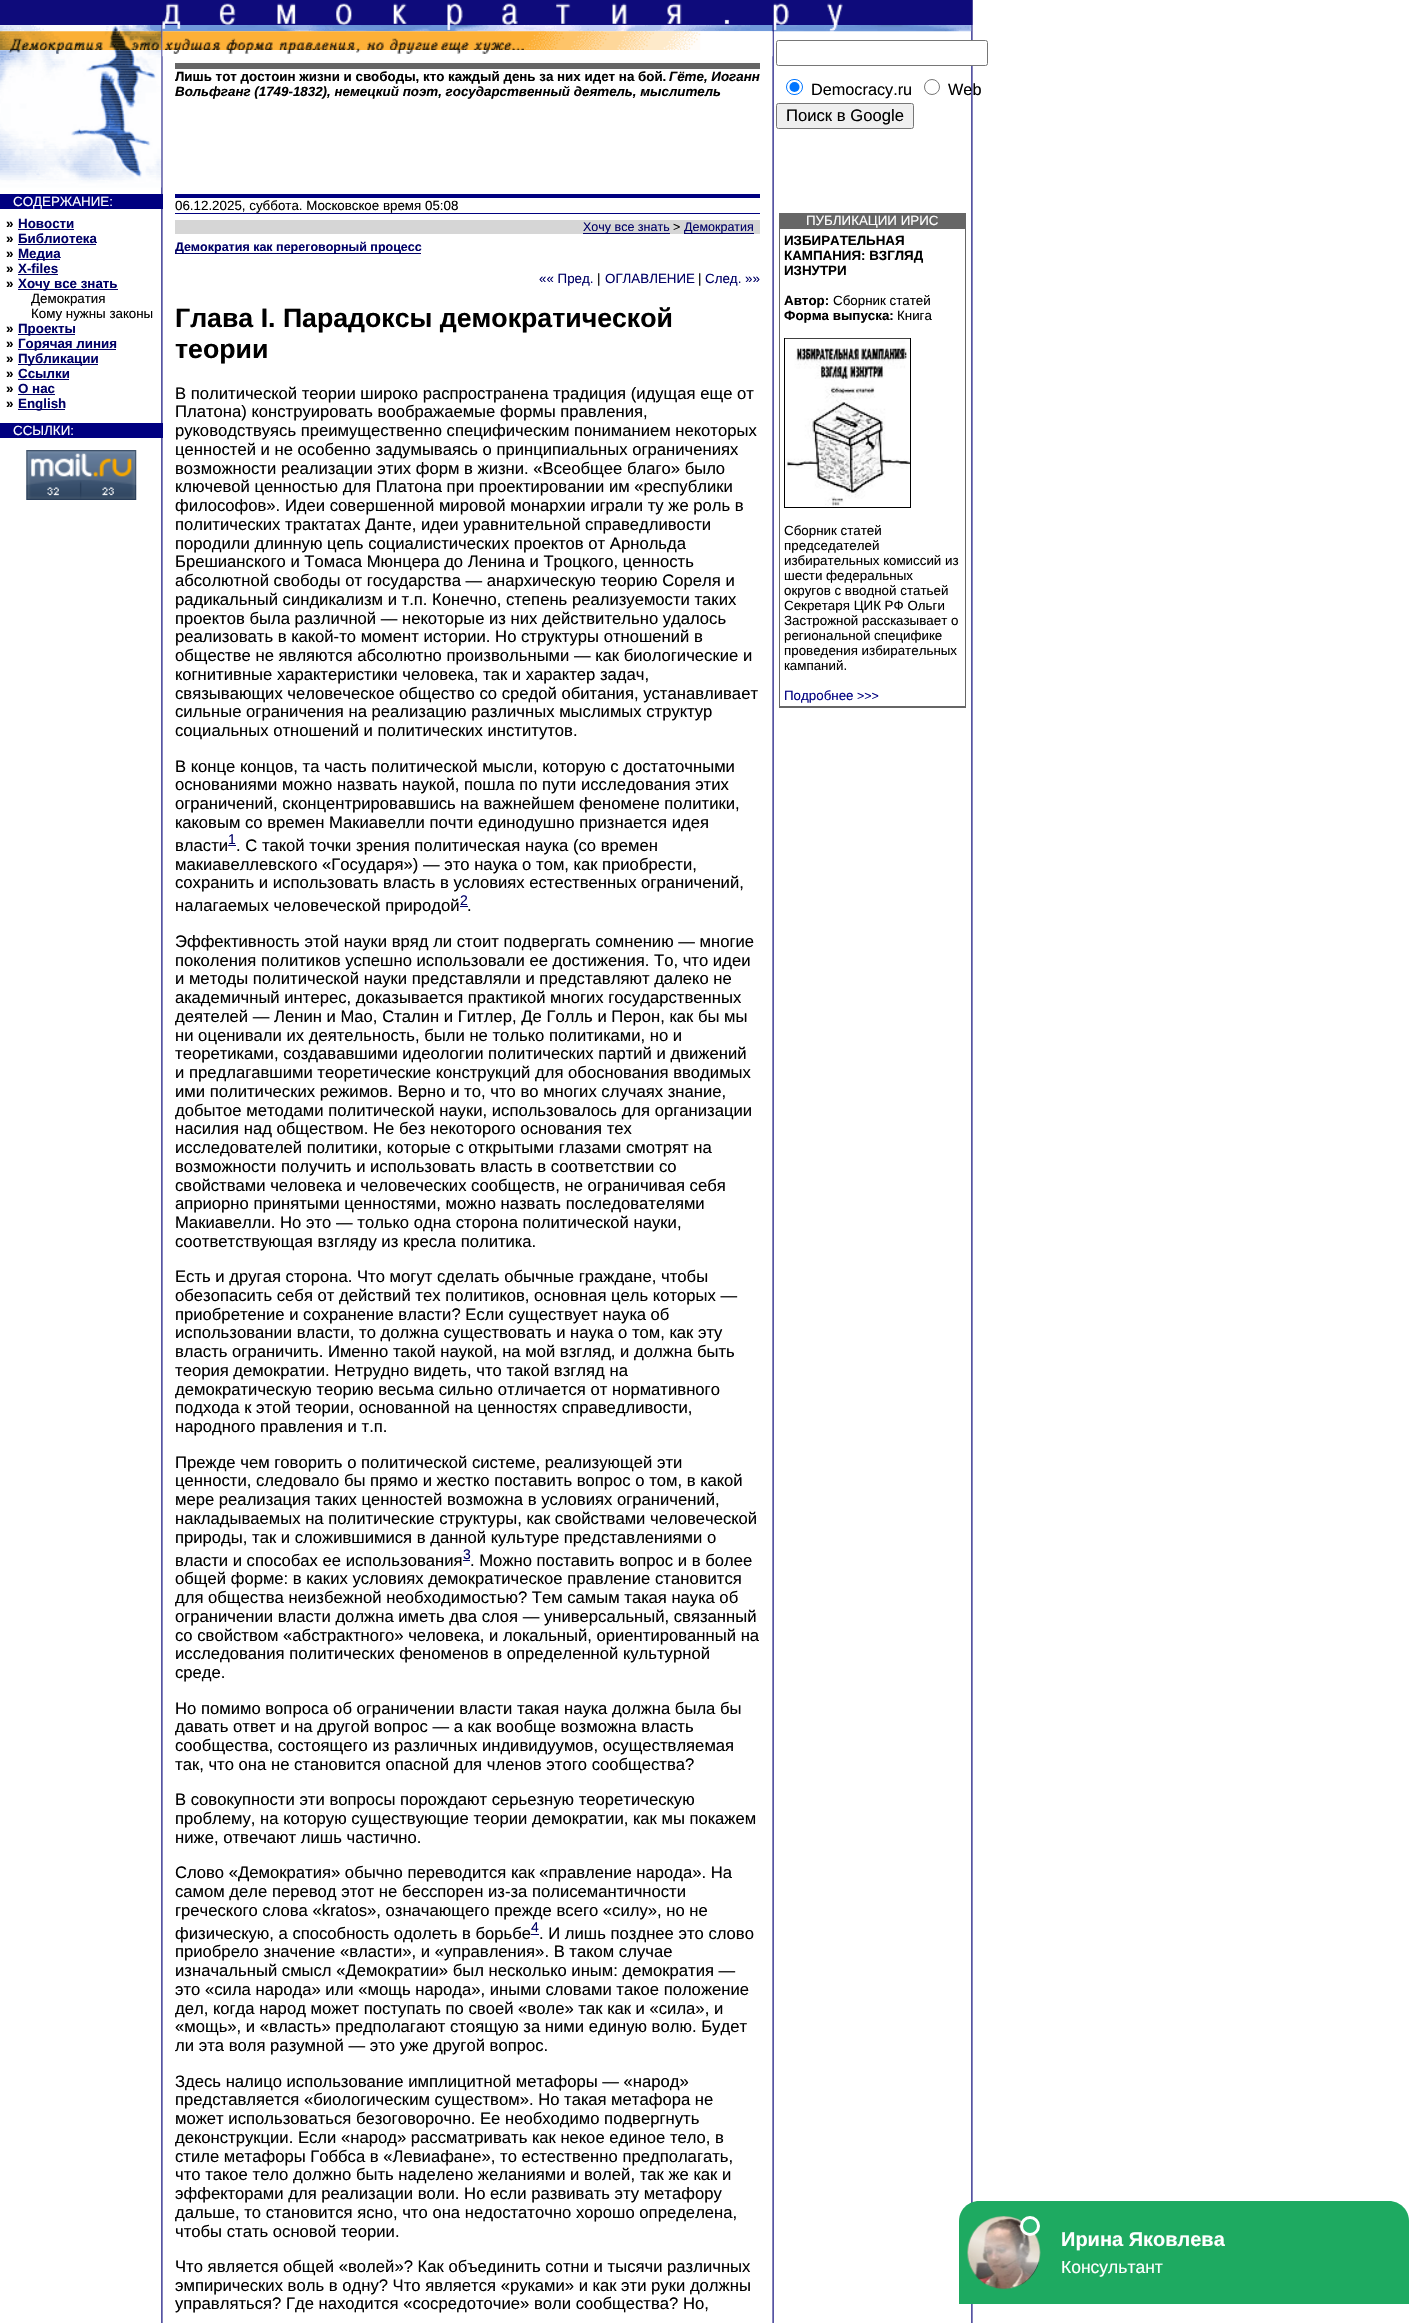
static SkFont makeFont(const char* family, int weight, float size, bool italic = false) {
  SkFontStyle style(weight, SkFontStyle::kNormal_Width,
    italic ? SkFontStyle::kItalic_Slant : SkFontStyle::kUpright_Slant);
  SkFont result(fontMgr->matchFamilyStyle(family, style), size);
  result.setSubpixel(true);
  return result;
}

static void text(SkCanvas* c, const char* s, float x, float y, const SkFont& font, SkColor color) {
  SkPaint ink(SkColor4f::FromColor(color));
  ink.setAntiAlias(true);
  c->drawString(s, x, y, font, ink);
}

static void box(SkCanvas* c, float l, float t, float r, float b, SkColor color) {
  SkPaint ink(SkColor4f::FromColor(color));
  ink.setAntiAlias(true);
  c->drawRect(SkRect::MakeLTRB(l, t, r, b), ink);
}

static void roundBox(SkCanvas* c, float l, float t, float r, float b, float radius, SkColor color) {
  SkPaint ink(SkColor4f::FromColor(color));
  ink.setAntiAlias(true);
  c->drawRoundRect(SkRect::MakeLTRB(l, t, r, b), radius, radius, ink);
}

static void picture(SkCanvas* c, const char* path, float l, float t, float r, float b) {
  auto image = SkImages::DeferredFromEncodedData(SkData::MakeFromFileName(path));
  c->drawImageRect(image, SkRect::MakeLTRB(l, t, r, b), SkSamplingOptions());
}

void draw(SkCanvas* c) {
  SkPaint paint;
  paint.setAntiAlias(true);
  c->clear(0xffffffff);
  picture(c, "img_01.png", 161, 0, 973, 2323);
  picture(c, "img_02.png", 0, 0, 973, 25);
  picture(c, "img_03.png", 0, 25, 162, 32);
  picture(c, "img_04.png", 162, 25, 972, 32);
  picture(c, "img_05.png", 0, 31, 162, 50);
  picture(c, "img_06.png", 0, 50, 162, 188);
  picture(c, "img_07.png", 162, 31, 773, 50);
  picture(c, "img_08.png", 162, 50, 773, 57);
  box(c, 175, 63, 760, 69, 0xff666666);
  SkFont face1 = makeFont("Liberation Sans", 700, 13.35f);
  text(c, "Лишь тот достоин жизни и свободы, кто каждый день за них идет на бой.", 175, 81, face1, 0xff000000);
  SkFont face2 = makeFont("Liberation Sans", 700, 13.35f, true);
  text(c, "Гёте, Иоганн", 669, 81, face2, 0xff000000);
  text(c, "Вольфганг (1749-1832), немецкий поэт, государственный деятель, мыслитель", 175, 96, face2, 0xff000000);
  paint.setColor(0xffffffff);
  c->drawRoundRect(SkRect::MakeLTRB(776.5f, 40.5f, 987.5f, 65.5f), 2, 2, paint);
  paint.setStyle(SkPaint::kStroke_Style);
  paint.setStrokeWidth(1);
  paint.setColor(0xff767676);
  c->drawRoundRect(SkRect::MakeLTRB(776.5f, 40.5f, 987.5f, 65.5f), 2, 2, paint);
  paint.setColor(0xff0075ff);
  c->drawRoundRect(SkRect::MakeLTRB(786.5f, 79.5f, 802.5f, 94.5f), 7.5f, 7.5f, paint);
  paint.setStyle(SkPaint::kFill_Style);
  c->drawCircle(794.5f, 87, 5, paint);
  SkFont face3 = makeFont("Liberation Sans", 400, 16.25f);
  text(c, "Democracy.ru", 811, 95, face3, 0xff000000);
  paint.setStyle(SkPaint::kStroke_Style);
  paint.setColor(0xff767676);
  c->drawCircle(932, 87, 7.5f, paint);
  text(c, "Web", 948, 95, face3, 0xff000000);
  paint.setStyle(SkPaint::kFill_Style);
  paint.setColor(0xffefefef);
  c->drawRoundRect(SkRect::MakeLTRB(776.5f, 103.5f, 913.5f, 128.5f), 2, 2, paint);
  paint.setStyle(SkPaint::kStroke_Style);
  paint.setColor(0xff767676);
  c->drawRoundRect(SkRect::MakeLTRB(776.5f, 103.5f, 913.5f, 128.5f), 2, 2, paint);
  SkFont face4 = makeFont("Liberation Sans", 400, 16.65f);
  text(c, "Поиск в Google", 786, 121, face4, 0xff000000);
  box(c, 0, 194, 163, 209, 0xff000080);
  SkFont face5 = makeFont("Liberation Sans", 400, 13.35f);
  text(c, "СОДЕРЖАНИЕ:", 13, 206, face5, 0xffffffff);
  text(c, "»", 6, 228, face1, 0xff000000);
  text(c, "Новости", 18, 228, face1, 0xff000066);
  box(c, 18, 229, 74, 230, 0xff000066);
  text(c, "»", 6, 243, face1, 0xff000000);
  text(c, "Библиотека", 18, 243, face1, 0xff000066);
  box(c, 18, 244, 96, 245, 0xff000066);
  text(c, "»", 6, 258, face1, 0xff000000);
  box(c, 18, 259, 60, 260, 0xff000066);
  text(c, "Медиа", 18, 258, face1, 0xff000066);
  text(c, "»", 6, 273, face1, 0xff000000);
  text(c, "X-files", 18, 273, face1, 0xff000066);
  box(c, 18, 274, 58, 275, 0xff000066);
  text(c, "»", 6, 288, face1, 0xff000000);
  box(c, 18, 289, 118, 290, 0xff000066);
  text(c, "Хочу все знать", 18, 288, face1, 0xff000066);
  text(c, "Демократия", 31, 303, face5, 0xff000000);
  text(c, "Кому нужны законы", 31, 318, face5, 0xff000000);
  text(c, "»", 6, 333, face1, 0xff000000);
  box(c, 18, 334, 75, 335, 0xff000066);
  text(c, "Проекты", 18, 333, face1, 0xff000066);
  text(c, "»", 6, 348, face1, 0xff000000);
  box(c, 18, 349, 116, 350, 0xff000066);
  text(c, "Горячая линия", 18, 348, face1, 0xff000066);
  text(c, "»", 6, 363, face1, 0xff000000);
  box(c, 18, 364, 98, 365, 0xff000066);
  text(c, "Публикации", 18, 363, face1, 0xff000066);
  text(c, "»", 6, 378, face1, 0xff000000);
  text(c, "Ссылки", 18, 378, face1, 0xff000066);
  box(c, 18, 379, 69, 380, 0xff000066);
  text(c, "»", 6, 393, face1, 0xff000000);
  text(c, "О нас", 18, 393, face1, 0xff000066);
  box(c, 18, 394, 55, 395, 0xff000066);
  text(c, "»", 6, 408, face1, 0xff000000);
  box(c, 18, 409, 65, 410, 0xff000066);
  text(c, "English", 18, 408, face1, 0xff000066);
  box(c, 0, 423, 163, 438, 0xff000080);
  text(c, "ССЫЛКИ:", 13, 435, face5, 0xffffffff);
  picture(c, "img_09.png", 26, 450, 137, 500);
  box(c, 175, 194, 760, 198, 0xff000080);
  text(c, "06.12.2025, суббота. Московское время 05:08", 175, 210, face5, 0xff000000);
  box(c, 175, 213, 760, 214, 0xff000080);
  box(c, 175, 220, 760, 234, 0xffd6d6d6);
  box(c, 583, 233, 670, 234, 0xff000066);
  SkFont face6 = makeFont("Liberation Sans", 400, 12.5f);
  text(c, "Хочу все знать", 583, 231, face6, 0xff000066);
  text(c, ">", 673, 231, face6, 0xff000000);
  box(c, 684, 233, 754, 234, 0xff000066);
  text(c, "Демократия", 684, 231, face6, 0xff000066);
  box(c, 175, 253, 421, 254, 0xff000066);
  SkFont face7 = makeFont("Liberation Sans", 700, 12.5f);
  text(c, "Демократия как переговорный процесс", 175, 251, face7, 0xff000066);
  text(c, "«« Пред.", 539, 283, face5, 0xff000066);
  text(c, "|", 597, 283, face5, 0xff000000);
  text(c, "ОГЛАВЛЕНИЕ", 605, 283, face5, 0xff000066);
  text(c, "|", 698, 283, face5, 0xff000000);
  text(c, "След. »»", 705, 283, face5, 0xff000066);
  SkFont face8 = makeFont("Liberation Sans", 700, 26.7f);
  text(c, "Глава I. Парадоксы демократической", 175, 327, face8, 0xff000000);
  text(c, "теории", 175, 358, face8, 0xff000000);
  text(c, "В политической теории широко распространена традиция (идущая еще от", 175, 399, face4, 0xff000000);
  text(c, "Платона) конструировать воображаемые формы правления,", 175, 417, face4, 0xff000000);
  text(c, "руководствуясь преимущественно специфическим пониманием некоторых", 175, 436, face4, 0xff000000);
  text(c, "ценностей и не особенно задумываясь о принципиальных ограничениях", 175, 455, face4, 0xff000000);
  text(c, "возможности реализации этих форм в жизни. «Всеобщее благо» было", 175, 474, face4, 0xff000000);
  text(c, "ключевой ценностью для Платона при проектировании им «республики", 175, 492, face4, 0xff000000);
  text(c, "философов». Идеи совершенной мировой монархии играли ту же роль в", 175, 511, face4, 0xff000000);
  text(c, "политических трактатах Данте, идеи уравнительной справедливости", 175, 530, face4, 0xff000000);
  text(c, "породили длинную цепь социалистических проектов от Арнольда", 175, 549, face4, 0xff000000);
  text(c, "Брешианского и Томаса Мюнцера до Ленина и Троцкого, ценность", 175, 567, face4, 0xff000000);
  text(c, "абсолютной свободы от государства — анархическую теорию Сореля и", 175, 586, face4, 0xff000000);
  text(c, "радикальный синдикализм и т.п. Конечно, степень реализуемости таких", 175, 605, face4, 0xff000000);
  text(c, "проектов была различной — некоторые из них действительно удалось", 175, 624, face4, 0xff000000);
  text(c, "реализовать в какой-то момент истории. Но структуры отношений в", 175, 642, face4, 0xff000000);
  text(c, "обществе не являются абсолютно произвольными — как биологические и", 175, 661, face4, 0xff000000);
  text(c, "когнитивные характеристики человека, так и характер задач,", 175, 680, face4, 0xff000000);
  text(c, "связывающих человеческое общество со средой обитания, устанавливает", 175, 699, face4, 0xff000000);
  text(c, "сильные ограничения на реализацию различных мыслимых структур", 175, 717, face4, 0xff000000);
  text(c, "социальных отношений и политических институтов.", 175, 736, face4, 0xff000000);
  text(c, "В конце концов, та часть политической мысли, которую с достаточными", 175, 772, face4, 0xff000000);
  text(c, "основаниями можно назвать наукой, пошла по пути исследования этих", 175, 790, face4, 0xff000000);
  text(c, "ограничений, сконцентрировавшись на важнейшем феномене политики,", 175, 809, face4, 0xff000000);
  text(c, "каковым со времен Макиавелли почти единодушно признается идея", 175, 828, face4, 0xff000000);
  text(c, "власти", 175, 851, face4, 0xff000000);
  SkFont face9 = makeFont("Liberation Sans", 400, 14);
  text(c, "1", 228, 844, face9, 0xff000066);
  box(c, 228, 845, 236, 846, 0xff000066);
  text(c, ". С такой точки зрения политическая наука (со времен", 236, 851, face4, 0xff000000);
  text(c, "макиавеллевского «Государя») — это наука о том, как приобрести,", 175, 870, face4, 0xff000000);
  text(c, "сохранить и использовать власть в условиях естественных ограничений,", 175, 888, face4, 0xff000000);
  text(c, "налагаемых человеческой природой", 175, 911, face4, 0xff000000);
  text(c, "2", 460, 905, face9, 0xff000066);
  box(c, 460, 906, 468, 907, 0xff000066);
  text(c, ".", 467, 911, face4, 0xff000000);
  text(c, "Эффективность этой науки вряд ли стоит подвергать сомнению — многие", 175, 947, face4, 0xff000000);
  text(c, "поколения политиков успешно использовали ее достижения. То, что идеи", 175, 966, face4, 0xff000000);
  text(c, "и методы политической науки представляли и представляют далеко не", 175, 984, face4, 0xff000000);
  text(c, "академичный интерес, доказывается практикой многих государственных", 175, 1003, face4, 0xff000000);
  text(c, "деятелей — Ленин и Мао, Сталин и Гитлер, Де Голль и Перон, как бы мы", 175, 1022, face4, 0xff000000);
  text(c, "ни оценивали их деятельность, были не только политиками, но и", 175, 1041, face4, 0xff000000);
  text(c, "теоретиками, создававшими идеологии политических партий и движений", 175, 1059, face4, 0xff000000);
  text(c, "и предлагавшими теоретические конструкций для обоснования вводимых", 175, 1078, face4, 0xff000000);
  text(c, "ими политических режимов. Верно и то, что во многих случаях знание,", 175, 1097, face4, 0xff000000);
  text(c, "добытое методами политической науки, использовалось для организации", 175, 1116, face4, 0xff000000);
  text(c, "насилия над обществом. Не без некоторого основания тех", 175, 1134, face4, 0xff000000);
  text(c, "исследователей политики, которые с открытыми глазами смотрят на", 175, 1153, face4, 0xff000000);
  text(c, "возможности получить и использовать власть в соответствии со", 175, 1172, face4, 0xff000000);
  text(c, "свойствами человека и человеческих сообществ, не ограничивая себя", 175, 1191, face4, 0xff000000);
  text(c, "априорно принятыми ценностями, можно назвать последователями", 175, 1209, face4, 0xff000000);
  text(c, "Макиавелли. Но это — только одна сторона политической науки,", 175, 1228, face4, 0xff000000);
  text(c, "соответствующая взгляду из кресла политика.", 175, 1247, face4, 0xff000000);
  text(c, "Есть и другая сторона. Что могут сделать обычные граждане, чтобы", 175, 1282, face4, 0xff000000);
  text(c, "обезопасить себя от действий тех политиков, основная цель которых —", 175, 1301, face4, 0xff000000);
  text(c, "приобретение и сохранение власти? Если существует наука об", 175, 1320, face4, 0xff000000);
  text(c, "использовании власти, то должна существовать и наука о том, как эту", 175, 1338, face4, 0xff000000);
  text(c, "власть ограничить. Именно такой наукой, на мой взгляд, и должна быть", 175, 1357, face4, 0xff000000);
  text(c, "теория демократии. Нетрудно видеть, что такой взгляд на", 175, 1376, face4, 0xff000000);
  text(c, "демократическую теорию весьма сильно отличается от нормативного", 175, 1395, face4, 0xff000000);
  text(c, "подхода к этой теории, основанной на ценностях справедливости,", 175, 1413, face4, 0xff000000);
  text(c, "народного правления и т.п.", 175, 1432, face4, 0xff000000);
  text(c, "Прежде чем говорить о политической системе, реализующей эти", 175, 1468, face4, 0xff000000);
  text(c, "ценности, следовало бы прямо и жестко поставить вопрос о том, в какой", 175, 1486, face4, 0xff000000);
  text(c, "мере реализация таких ценностей возможна в условиях ограничений,", 175, 1505, face4, 0xff000000);
  text(c, "накладываемых на политические структуры, как свойствами человеческой", 175, 1524, face4, 0xff000000);
  text(c, "природы, так и сложившимися в данной культуре представлениями о", 175, 1543, face4, 0xff000000);
  text(c, "власти и способах ее использования", 175, 1566, face4, 0xff000000);
  text(c, "3", 463, 1559, face9, 0xff000066);
  box(c, 463, 1560, 470, 1561, 0xff000066);
  text(c, ". Можно поставить вопрос и в более", 470, 1566, face4, 0xff000000);
  text(c, "общей форме: в каких условиях демократическое правление становится", 175, 1584, face4, 0xff000000);
  text(c, "для общества неизбежной необходимостью? Тем самым такая наука об", 175, 1603, face4, 0xff000000);
  text(c, "ограничении власти должна иметь два слоя — универсальный, связанный", 175, 1622, face4, 0xff000000);
  text(c, "со свойством «абстрактного» человека, и локальный, ориентированный на", 175, 1641, face4, 0xff000000);
  text(c, "исследования политических феноменов в определенной культурной", 175, 1659, face4, 0xff000000);
  text(c, "среде.", 175, 1678, face4, 0xff000000);
  text(c, "Но помимо вопроса об ограничении власти такая наука должна была бы", 175, 1714, face4, 0xff000000);
  text(c, "давать ответ и на другой вопрос — а как вообще возможна власть", 175, 1732, face4, 0xff000000);
  text(c, "сообщества, состоящего из различных индивидуумов, осуществляемая", 175, 1751, face4, 0xff000000);
  text(c, "так, что она не становится опасной для членов этого сообщества?", 175, 1770, face4, 0xff000000);
  text(c, "В совокупности эти вопросы порождают серьезную теоретическую", 175, 1805, face4, 0xff000000);
  text(c, "проблему, на которую существующие теории демократии, как мы покажем", 175, 1824, face4, 0xff000000);
  text(c, "ниже, отвечают лишь частично.", 175, 1843, face4, 0xff000000);
  text(c, "Слово «Демократия» обычно переводится как «правление народа». На", 175, 1878, face4, 0xff000000);
  text(c, "самом деле перевод этот не бесспорен из-за полисемантичности", 175, 1897, face4, 0xff000000);
  text(c, "греческого слова «kratos», означающего прежде всего «силу», но не", 175, 1916, face4, 0xff000000);
  text(c, "физическую, а способность одолеть в борьбе", 175, 1939, face4, 0xff000000);
  text(c, "4", 531, 1932, face9, 0xff000066);
  box(c, 531, 1934, 539, 1935, 0xff000066);
  text(c, ". И лишь позднее это слово", 539, 1939, face4, 0xff000000);
  text(c, "приобрело значение «власти», и «управления». В таком случае", 175, 1957, face4, 0xff000000);
  text(c, "изначальный смысл «Демократии» был несколько иным: демократия —", 175, 1976, face4, 0xff000000);
  text(c, "это «сила народа» или «мощь народа», иными словами такое положение", 175, 1995, face4, 0xff000000);
  text(c, "дел, когда народ может поступать по своей «воле» так как и «сила», и", 175, 2014, face4, 0xff000000);
  text(c, "«мощь», и «власть» предполагают стоящую за ними единую волю. Будет", 175, 2032, face4, 0xff000000);
  text(c, "ли эта воля разумной — это уже другой вопрос.", 175, 2051, face4, 0xff000000);
  text(c, "Здесь налицо использование имплицитной метафоры — «народ»", 175, 2087, face4, 0xff000000);
  text(c, "представляется «биологическим существом». Но такая метафора не", 175, 2105, face4, 0xff000000);
  text(c, "может использоваться безоговорочно. Ее необходимо подвергнуть", 175, 2124, face4, 0xff000000);
  text(c, "деконструкции. Если «народ» рассматривать как некое единое тело, в", 175, 2143, face4, 0xff000000);
  text(c, "стиле метафоры Гоббса в «Левиафане», то естественно предполагать,", 175, 2162, face4, 0xff000000);
  text(c, "что такое тело должно быть наделено желаниями и волей, так же как и", 175, 2180, face4, 0xff000000);
  text(c, "эффекторами для реализации воли. Но если развивать эту метафору", 175, 2199, face4, 0xff000000);
  text(c, "дальше, то становится ясно, что она недостаточно хорошо определена,", 175, 2218, face4, 0xff000000);
  text(c, "чтобы стать основой теории.", 175, 2237, face4, 0xff000000);
  text(c, "Что является общей «волей»? Как объединить сотни и тысячи различных", 175, 2272, face4, 0xff000000);
  text(c, "эмпирических воль в одну? Что является «руками» и как эти руки должны", 175, 2291, face4, 0xff000000);
  text(c, "управляться? Где находится «сосредоточие» воли сообщества? Но,", 175, 2309, face4, 0xff000000);
  box(c, 779, 213, 966, 708, 0xff666666);
  text(c, "ПУБЛИКАЦИИ ИРИС", 806, 225, face5, 0xffffffff);
  box(c, 780, 229, 965, 706, 0xffffffff);
  text(c, "ИЗБИРАТЕЛЬНАЯ", 784, 245, face1, 0xff000000);
  text(c, "КАМПАНИЯ: ВЗГЛЯД", 784, 260, face1, 0xff000000);
  text(c, "ИЗНУТРИ", 784, 275, face1, 0xff000000);
  text(c, "Автор:", 784, 305, face1, 0xff000000);
  text(c, "Сборник статей", 833, 305, face5, 0xff000000);
  text(c, "Форма выпуска:", 784, 320, face1, 0xff000000);
  text(c, "Книга", 897, 320, face5, 0xff000000);
  paint.setColor(0xff000000);
  c->drawRect(SkRect::MakeLTRB(784.5f, 338.5f, 910.5f, 507.5f), paint);
  picture(c, "img_10.png", 785, 338, 910, 507);
  text(c, "Сборник статей", 784, 535, face5, 0xff000000);
  text(c, "председателей", 784, 550, face5, 0xff000000);
  text(c, "избирательных комиссий из", 784, 565, face5, 0xff000000);
  text(c, "шести федеральных", 784, 580, face5, 0xff000000);
  text(c, "округов с вводной статьей", 784, 595, face5, 0xff000000);
  text(c, "Секретаря ЦИК РФ Ольги", 784, 610, face5, 0xff000000);
  text(c, "Застрожной рассказывает о", 784, 625, face5, 0xff000000);
  text(c, "региональной специфике", 784, 640, face5, 0xff000000);
  text(c, "проведения избирательных", 784, 655, face5, 0xff000000);
  text(c, "кампаний.", 784, 670, face5, 0xff000000);
  text(c, "Подробнее", 784, 700, face5, 0xff000080);
  text(c, ">>>", 857, 700, face6, 0xff000080);
  paint.setStyle(SkPaint::kFill_Style);
  paint.setColor(0xff1eaa61);
  c->drawPath(SkPathBuilder().moveTo(979, 2201).lineTo(1389, 2201).cubicTo(1400, 2201, 1409, 2210, 1409, 2221).lineTo(1409, 2304).lineTo(959, 2304).lineTo(959, 2221).cubicTo(959, 2210, 968, 2201, 979, 2201).close().detach(), paint);
  roundBox(c, 968, 2216, 1040, 2289, 36, 0xff178049);
  picture(c, "img_11.png", 967, 2216, 1041, 2290);
  {
    const SkColor colors[] = {0x00ffffff, 0x99ffffff, 0x5cffffff, 0x00ffffff};
    const float stops[] = {0, 0.4f, 0.6f, 1};
    const SkPoint ends[] = {{1016, 2223}, {991, 2291}};
    paint.setShader(SkGradientShader::MakeLinear(ends, colors, stops, 4, SkTileMode::kClamp));
    paint.setAlpha(255);
  }
  c->drawPath(SkPathBuilder().moveTo(999, 2216).lineTo(1031, 2228).lineTo(1036, 2236).cubicTo(1052, 2268, 1015, 2304, 984, 2283).cubicTo(976, 2278, 971, 2269, 969, 2260).cubicTo(965, 2240, 978, 2219, 999, 2216).close().detach(), paint);
  paint.setShader(nullptr);
  paint.setColor(0xff31b978);
  c->drawCircle(1030, 2226, 8.5f, paint);
  paint.setStyle(SkPaint::kStroke_Style);
  paint.setStrokeWidth(3);
  paint.setColor(0xffffffff);
  c->drawCircle(1030, 2226, 8.5f, paint);
  SkFont face10 = makeFont("Liberation Sans", 700, 20);
  text(c, "Ирина Яковлева", 1061, 2246, face10, 0xffffffff);
  SkFont face11 = makeFont("Liberation Sans", 400, 17.5f);
  text(c, "Консультант", 1061, 2273, face11, 0xffffffff);
}
